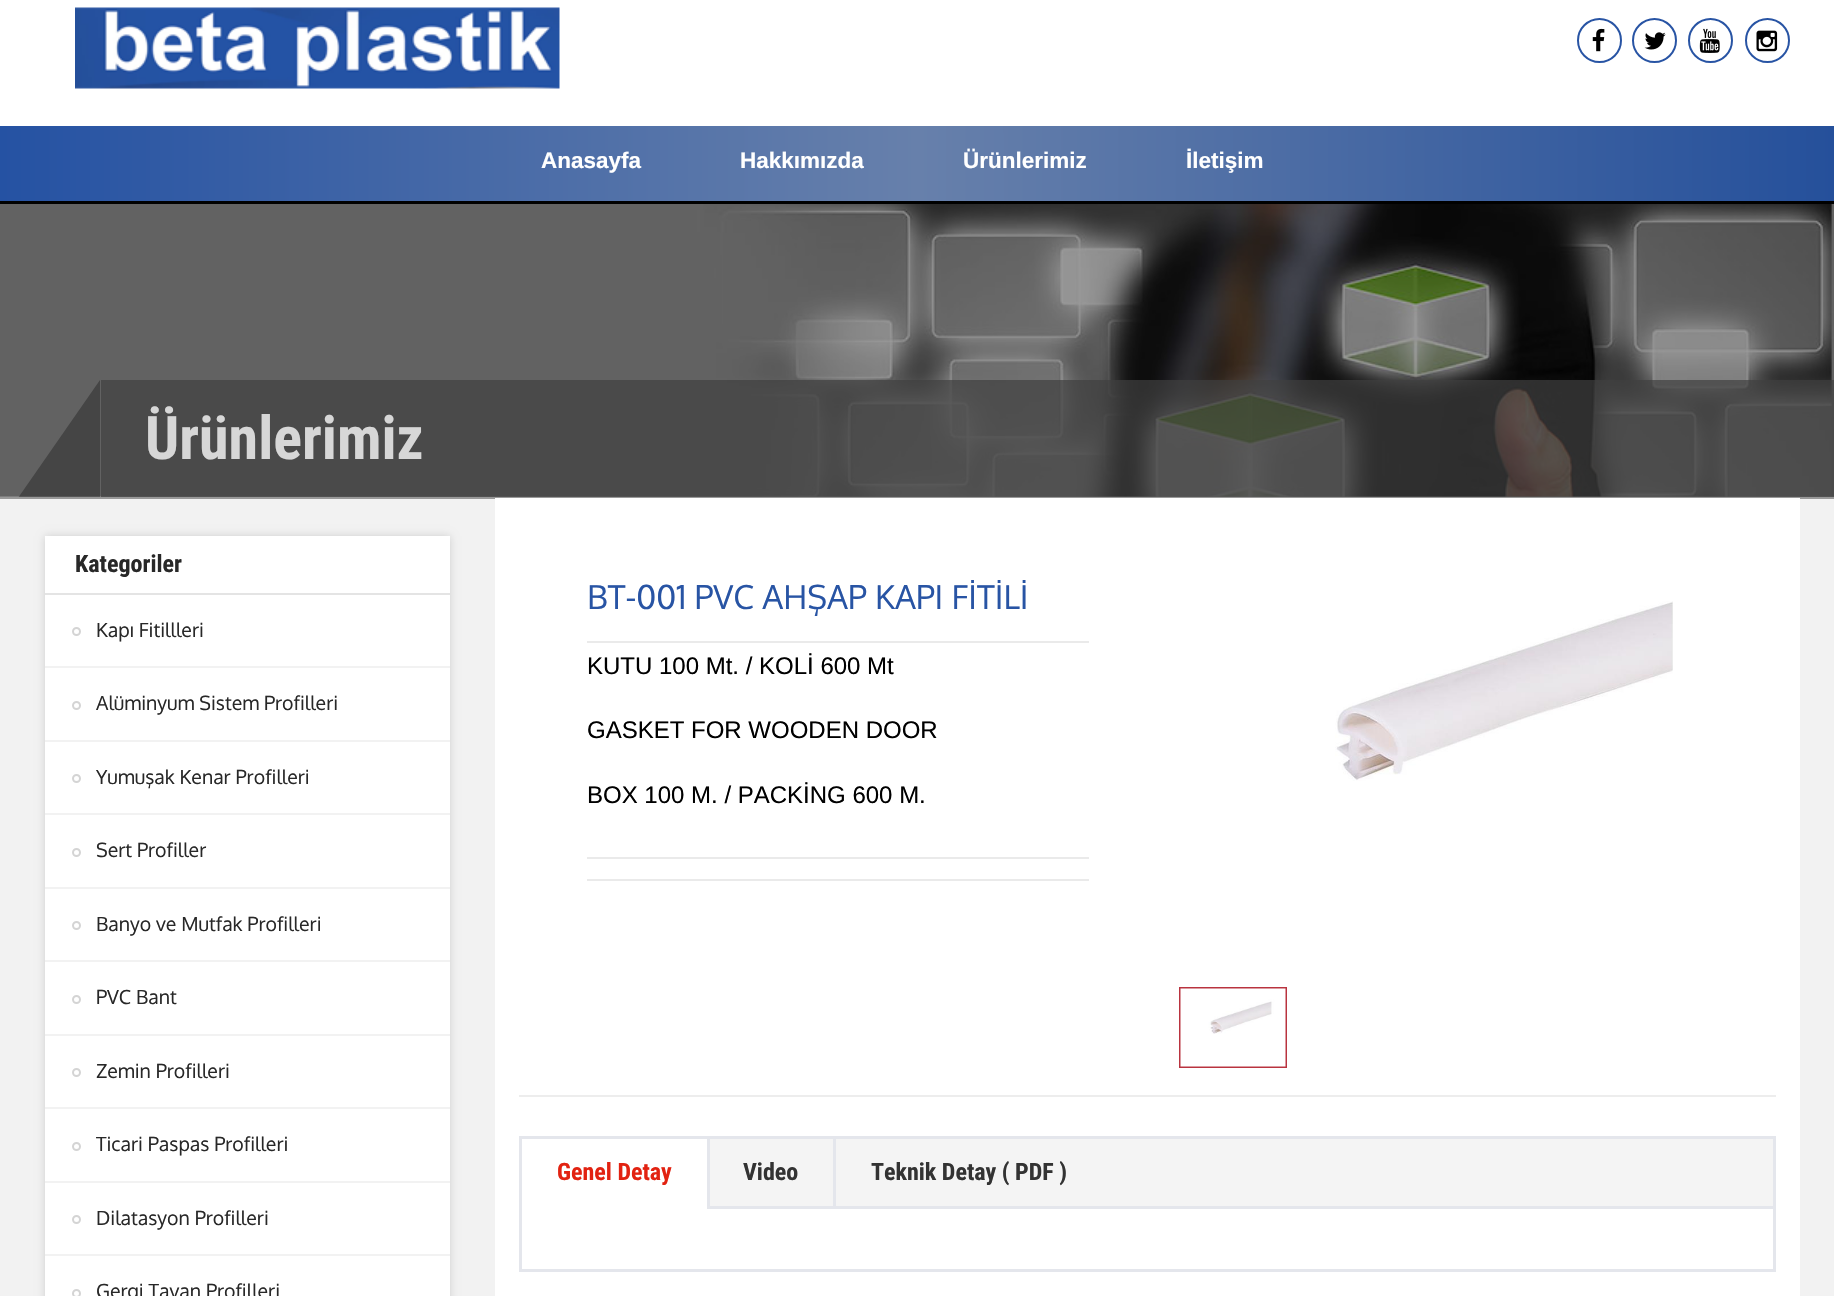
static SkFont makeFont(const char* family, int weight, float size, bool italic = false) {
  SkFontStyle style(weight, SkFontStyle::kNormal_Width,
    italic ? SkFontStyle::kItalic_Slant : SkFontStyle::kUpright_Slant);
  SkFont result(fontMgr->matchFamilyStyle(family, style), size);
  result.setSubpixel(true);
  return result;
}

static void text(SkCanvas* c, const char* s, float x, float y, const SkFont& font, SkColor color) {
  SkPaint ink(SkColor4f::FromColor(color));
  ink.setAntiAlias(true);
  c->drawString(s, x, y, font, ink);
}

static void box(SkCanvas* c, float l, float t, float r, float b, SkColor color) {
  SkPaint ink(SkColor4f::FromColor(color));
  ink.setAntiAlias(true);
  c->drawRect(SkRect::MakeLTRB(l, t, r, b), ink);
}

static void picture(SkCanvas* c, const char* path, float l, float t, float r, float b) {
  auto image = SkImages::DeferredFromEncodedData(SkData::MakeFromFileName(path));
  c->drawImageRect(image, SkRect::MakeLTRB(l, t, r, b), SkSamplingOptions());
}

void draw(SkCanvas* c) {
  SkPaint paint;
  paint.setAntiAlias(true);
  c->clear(0xffffffff);
  box(c, 0, 496, 1834, 499, 0xff999999);
  picture(c, "img_01.png", 75, 7, 560, 89);
  paint.setStyle(SkPaint::kStroke_Style);
  paint.setStrokeWidth(2);
  paint.setColor(0xff2854a4);
  c->drawCircle(1599.5f, 40.5f, 21.5f, paint);
  picture(c, "img_02.png", 1592, 28, 1605, 52);
  c->drawCircle(1654.5f, 40.5f, 21.5f, paint);
  picture(c, "img_03.png", 1644, 32, 1666, 50);
  c->drawCircle(1710.5f, 40.5f, 21.5f, paint);
  picture(c, "img_04.png", 1699, 28, 1720, 53);
  c->drawCircle(1767.5f, 40.5f, 21.5f, paint);
  picture(c, "img_05.png", 1756, 30, 1778, 52);
  paint.setStyle(SkPaint::kFill_Style);
  {
    const SkColor colors[] = {0xff2552a3, 0xff6780ab, 0xff25509b};
    const float stops[] = {0, 0.5f, 1};
    const SkPoint ends[] = {{0, 164}, {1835, 163}};
    paint.setShader(SkGradientShader::MakeLinear(ends, colors, stops, 3, SkTileMode::kClamp));
    paint.setAlpha(255);
  }
  c->drawRect(SkRect::MakeLTRB(0, 126, 1834, 201), paint);
  box(c, 0, 201, 1834, 204, 0xff000000);
  SkFont face1 = makeFont("Liberation Sans", 700, 22.5f);
  text(c, "Anasayfa", 541, 168, face1, 0xffffffff);
  text(c, "Hakkımızda", 740, 168, face1, 0xffffffff);
  text(c, "Ürünlerimiz", 963, 168, face1, 0xffffffff);
  text(c, "İletişim", 1186, 168, face1, 0xffffffff);
  picture(c, "img_06.png", 0, 204, 1834, 497);
  c->save();
  c->clipRect(SkRect::MakeLTRB(18, 380, 1818, 497));
  paint.setShader(nullptr);
  paint.setColor(0x4d000000);
  c->drawPath(SkPathBuilder().moveTo(100, 380).lineTo(100, 498).lineTo(18, 498).close().detach(), paint);
  c->restore();
  box(c, 101, 380, 1818, 497, 0xb33f3f3f);
  SkFont face2 = makeFont("Roboto Condensed", 700, 60);
  text(c, "Ürünlerimiz", 145, 459, face2, 0xffd7d7d7);
  box(c, 1818, 380, 1834, 497, 0xb33f3f3f);
  box(c, 0, 499, 1834, 1296, 0xfff2f2f2);
  paint.setColor(0x26000000);
  paint.setMaskFilter(SkMaskFilter::MakeBlur(kNormal_SkBlurStyle, 4));
  c->drawRect(SkRect::MakeLTRB(45, 536, 450, 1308), paint);
  paint.setMaskFilter(nullptr);
  box(c, 45, 536, 450, 1296, 0xffffffff);
  box(c, 45, 593, 450, 595, 0xffe4e4e4);
  SkFont face3 = makeFont("Roboto Condensed", 700, 24);
  text(c, "Kategoriler", 75, 572, face3, 0xff282828);
  paint.setStyle(SkPaint::kStroke_Style);
  paint.setColor(0xffd4d4d4);
  c->drawCircle(76.5f, 631.5f, 3.5f, paint);
  SkFont face4 = makeFont("Oxygen", 400, 19.5f);
  text(c, "Kapı Fitillleri", 96, 637, face4, 0xff282828);
  box(c, 45, 666, 450, 668, 0xfff2f2f2);
  c->drawCircle(76.5f, 705.5f, 3.5f, paint);
  text(c, "Alüminyum Sistem Profilleri", 96, 710, face4, 0xff282828);
  box(c, 45, 740, 450, 742, 0xfff2f2f2);
  c->drawCircle(76.5f, 778.5f, 3.5f, paint);
  text(c, "Yumuşak Kenar Profilleri", 96, 784, face4, 0xff282828);
  box(c, 45, 813, 450, 815, 0xfff2f2f2);
  c->drawCircle(76.5f, 852.5f, 3.5f, paint);
  text(c, "Sert Profiller", 96, 857, face4, 0xff282828);
  box(c, 45, 887, 450, 889, 0xfff2f2f2);
  c->drawCircle(76.5f, 925.5f, 3.5f, paint);
  text(c, "Banyo ve Mutfak Profilleri", 96, 931, face4, 0xff282828);
  box(c, 45, 960, 450, 962, 0xfff2f2f2);
  c->drawCircle(76.5f, 999.5f, 3.5f, paint);
  text(c, "PVC Bant", 96, 1004, face4, 0xff282828);
  box(c, 45, 1034, 450, 1036, 0xfff2f2f2);
  c->drawCircle(76.5f, 1072.5f, 3.5f, paint);
  text(c, "Zemin Profilleri", 96, 1078, face4, 0xff282828);
  box(c, 45, 1107, 450, 1109, 0xfff2f2f2);
  c->drawCircle(76.5f, 1146.5f, 3.5f, paint);
  text(c, "Ticari Paspas Profilleri", 96, 1151, face4, 0xff282828);
  box(c, 45, 1181, 450, 1183, 0xfff2f2f2);
  c->drawCircle(76.5f, 1219.5f, 3.5f, paint);
  text(c, "Dilatasyon Profilleri", 96, 1225, face4, 0xff282828);
  box(c, 45, 1254, 450, 1256, 0xfff2f2f2);
  c->drawCircle(76.5f, 1293.5f, 3.5f, paint);
  text(c, "Gergi Tavan Profilleri", 96, 1298, face4, 0xff282828);
  box(c, 495, 498, 1800, 1296, 0xffffffff);
  box(c, 519, 1095, 1776, 1097, 0xffededed);
  SkFont face5 = makeFont("Oxygen", 400, 33);
  text(c, "BT-001 PVC AHŞAP KAPI FİTİLİ", 587, 609, face5, 0xff2854a4);
  box(c, 587, 641, 1089, 643, 0xffeaeaea);
  box(c, 587, 857, 1089, 859, 0xffeaeaea);
  SkFont face6 = makeFont("Liberation Sans", 400, 24);
  text(c, "KUTU 100 Mt. / KOLİ 600 Mt", 587, 674, face6, 0xff000000);
  text(c, "GASKET FOR WOODEN DOOR", 587, 738, face6, 0xff000000);
  text(c, "BOX 100 M. / PACKİNG 600 M.", 587, 803, face6, 0xff000000);
  box(c, 587, 879, 1089, 881, 0xffeaeaea);
  picture(c, "img_07.png", 1335, 601, 1673, 781);
  paint.setColor(0xffb9333f);
  c->drawRect(SkRect::MakeLTRB(1180, 988, 1286, 1067), paint);
  picture(c, "img_08.png", 1180, 988, 1286, 1067);
  paint.setStrokeWidth(3);
  paint.setColor(0xffe4e6ec);
  c->drawRect(SkRect::MakeLTRB(520.5f, 1137.5f, 1774.5f, 1270.5f), paint);
  box(c, 710, 1139, 1773, 1206, 0xfff4f4f4);
  box(c, 707, 1206, 1773, 1209, 0xffe4e6ec);
  text(c, "Genel Detay", 557, 1180, face3, 0xffe22211);
  box(c, 707, 1139, 710, 1208, 0xffe4e6ec);
  text(c, "Video", 743, 1180, face3, 0xff333333);
  box(c, 833, 1139, 836, 1208, 0xffe4e6ec);
  text(c, "Teknik Detay ( PDF )", 871, 1180, face3, 0xff333333);
}
